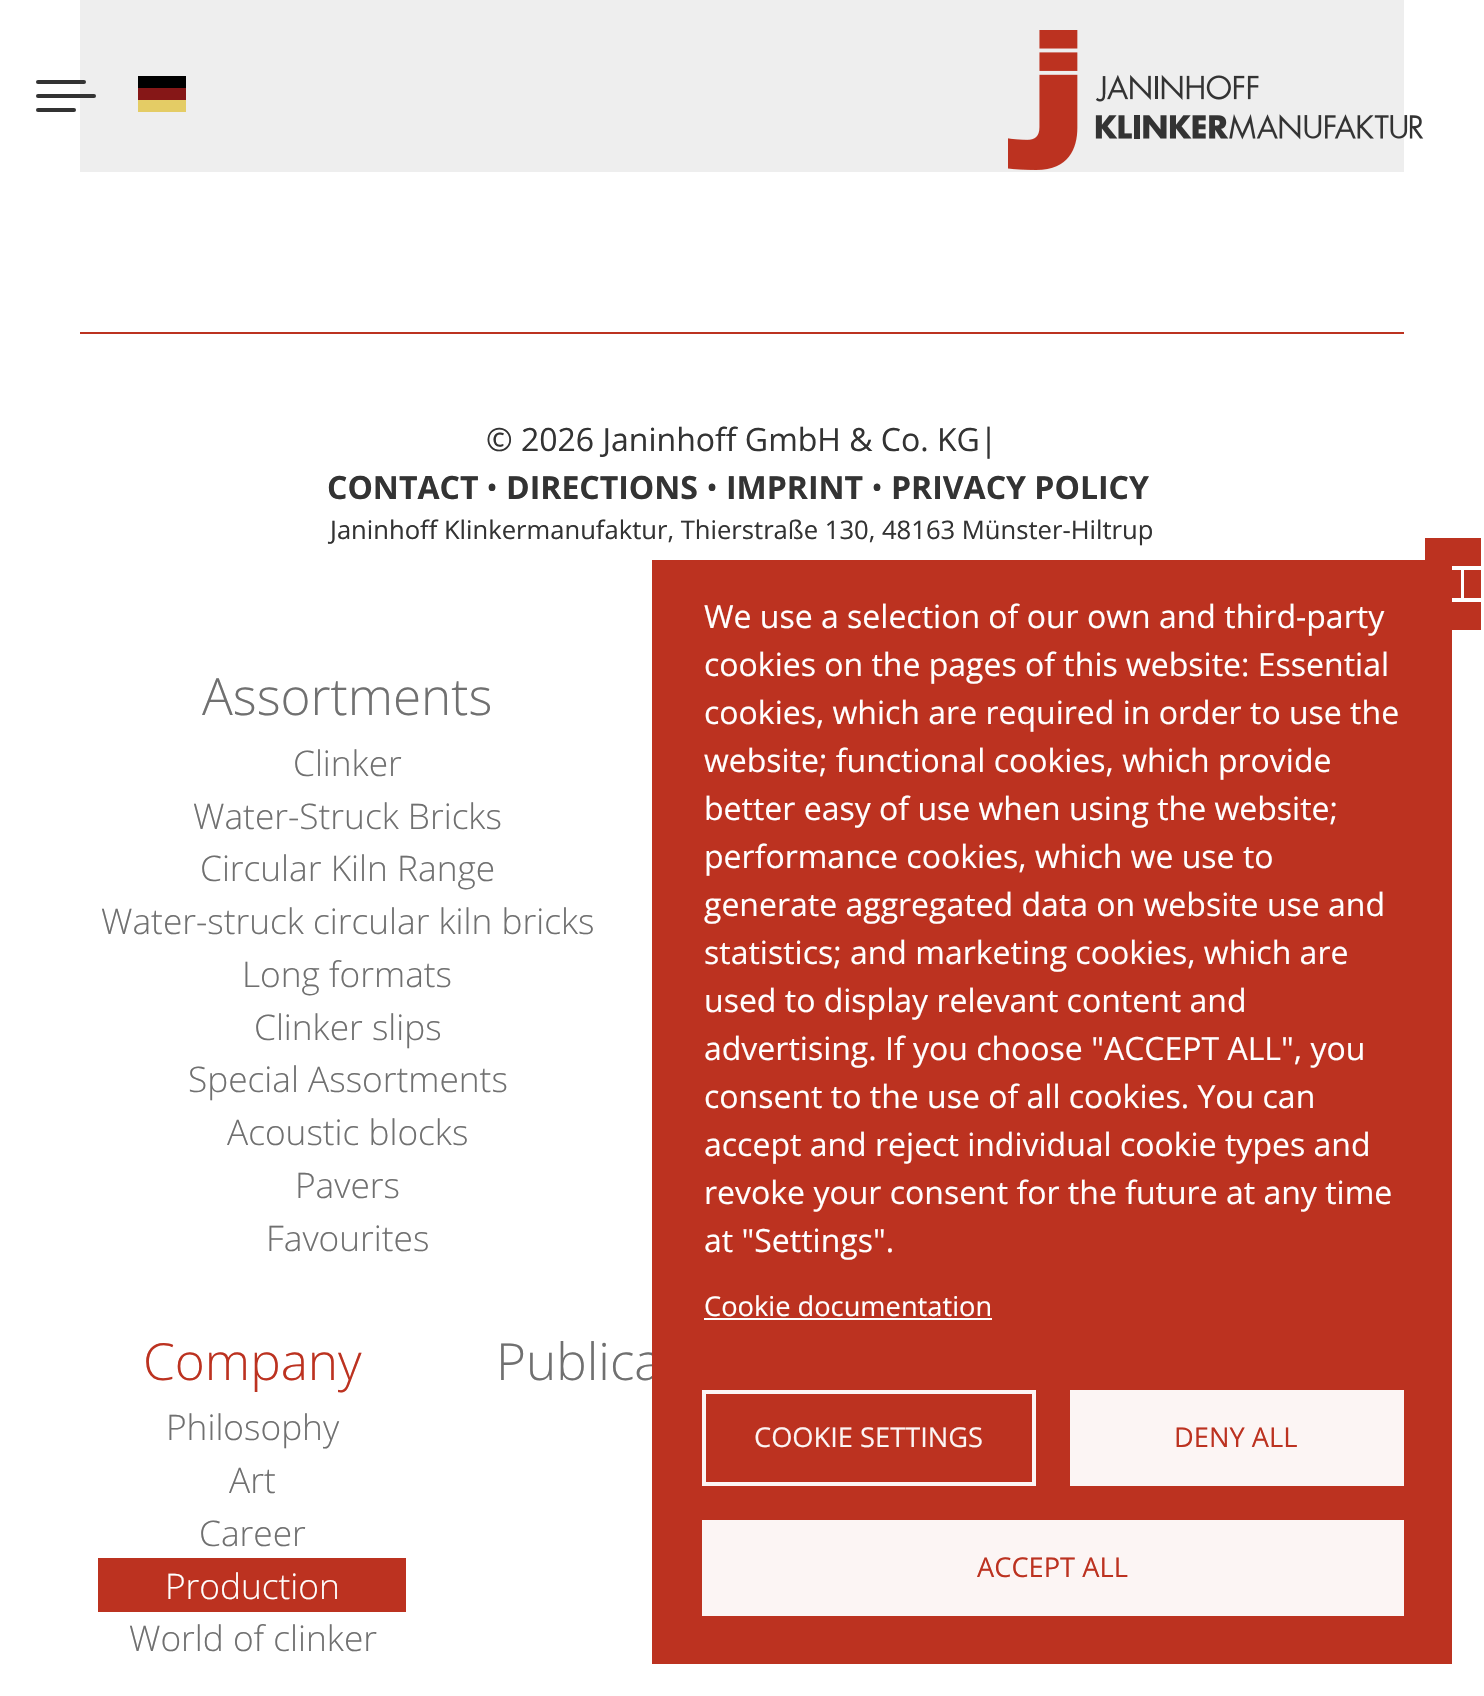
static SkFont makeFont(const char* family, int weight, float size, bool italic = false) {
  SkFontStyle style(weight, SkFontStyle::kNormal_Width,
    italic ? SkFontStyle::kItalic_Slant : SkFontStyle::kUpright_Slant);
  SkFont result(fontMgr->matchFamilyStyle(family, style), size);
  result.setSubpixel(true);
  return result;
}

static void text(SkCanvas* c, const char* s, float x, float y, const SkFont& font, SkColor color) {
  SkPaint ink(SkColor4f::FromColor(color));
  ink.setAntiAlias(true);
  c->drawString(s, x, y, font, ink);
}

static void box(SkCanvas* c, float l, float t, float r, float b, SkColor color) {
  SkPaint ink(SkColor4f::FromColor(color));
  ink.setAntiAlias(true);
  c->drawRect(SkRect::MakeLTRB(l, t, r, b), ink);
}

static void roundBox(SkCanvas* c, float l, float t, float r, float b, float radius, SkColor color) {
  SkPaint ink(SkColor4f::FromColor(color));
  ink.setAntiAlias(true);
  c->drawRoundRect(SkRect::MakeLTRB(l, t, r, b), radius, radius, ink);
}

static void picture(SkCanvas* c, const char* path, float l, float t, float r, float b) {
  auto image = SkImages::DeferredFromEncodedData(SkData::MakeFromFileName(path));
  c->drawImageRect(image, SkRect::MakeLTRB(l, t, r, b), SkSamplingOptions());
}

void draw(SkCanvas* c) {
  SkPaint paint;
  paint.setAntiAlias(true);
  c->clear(0xffffffff);
  box(c, 80, 0, 1404, 172, 0xffeeeeee);
  roundBox(c, 36, 94, 96, 98, 2, 0xff333333);
  roundBox(c, 36, 80, 86, 84, 2, 0xff333333);
  roundBox(c, 36, 108, 76, 112, 2, 0xff333333);
  box(c, 138, 76, 186, 88, 0xff000000);
  box(c, 138, 88, 186, 100, 0xff861717);
  box(c, 138, 100, 186, 112, 0xffe4cc65);
  picture(c, "img_01.png", 1008, 30, 1424, 170);
  box(c, 80, 332, 1404, 334, 0xffbc3220);
  SkFont face1 = makeFont("Open Sans", 400, 32);
  text(c, "© 2026 Janinhoff GmbH & Co. KG|", 486, 451, face1, 0xff333333);
  SkFont face2 = makeFont("Open Sans", 700, 32);
  text(c, "CONTACT", 327, 499, face2, 0xff333333);
  text(c, "•", 486, 499, face1, 0xff333333);
  text(c, "DIRECTIONS", 506, 499, face2, 0xff333333);
  text(c, "•", 706, 499, face1, 0xff333333);
  text(c, "IMPRINT", 726, 499, face2, 0xff333333);
  text(c, "•", 871, 499, face1, 0xff333333);
  text(c, "PRIVACY POLICY", 891, 499, face2, 0xff333333);
  SkFont face3 = makeFont("Open Sans", 400, 25.6f);
  text(c, "Janinhoff Klinkermanufaktur, Thierstraße 130, 48163 Münster-Hiltrup", 330, 539, face3, 0xff333333);
  SkFont face4 = makeFont("Open Sans", 300, 51.25f);
  text(c, "Assortments", 202, 715, face4, 0xff707070);
  SkFont face5 = makeFont("Open Sans", 300, 35.25f);
  text(c, "Clinker", 293, 776, face5, 0xff707070);
  text(c, "Water-Struck Bricks", 193, 829, face5, 0xff707070);
  text(c, "Circular Kiln Range", 200, 881, face5, 0xff707070);
  text(c, "Water-struck circular kiln bricks", 101, 934, face5, 0xff707070);
  text(c, "Long formats", 242, 987, face5, 0xff707070);
  text(c, "Clinker slips", 254, 1040, face5, 0xff707070);
  text(c, "Special Assortments", 188, 1092, face5, 0xff707070);
  text(c, "Acoustic blocks", 227, 1145, face5, 0xff707070);
  text(c, "Pavers", 295, 1198, face5, 0xff707070);
  text(c, "Favourites", 266, 1251, face5, 0xff707070);
  text(c, "Company", 143, 1380, face4, 0xffbc3220);
  text(c, "Philosophy", 166, 1440, face5, 0xff707070);
  text(c, "Art", 229, 1493, face5, 0xff707070);
  text(c, "Career", 199, 1546, face5, 0xff707070);
  box(c, 98, 1558, 406, 1612, 0xffbc3220);
  text(c, "Production", 165, 1599, face5, 0xffffffff);
  text(c, "World of clinker", 129, 1651, face5, 0xff707070);
  text(c, "Publica", 496, 1380, face4, 0xff707070);
  box(c, 652, 560, 1452, 1664, 0xffbc3220);
  text(c, "We use a selection of our own and third-party", 704, 628, face1, 0xffffffff);
  text(c, "cookies on the pages of this website: Essential", 704, 676, face1, 0xffffffff);
  text(c, "cookies, which are required in order to use the", 704, 724, face1, 0xffffffff);
  text(c, "website; functional cookies, which provide", 704, 772, face1, 0xffffffff);
  text(c, "better easy of use when using the website;", 704, 820, face1, 0xffffffff);
  text(c, "performance cookies, which we use to", 704, 868, face1, 0xffffffff);
  text(c, "generate aggregated data on website use and", 704, 916, face1, 0xffffffff);
  text(c, "statistics; and marketing cookies, which are", 704, 964, face1, 0xffffffff);
  text(c, "used to display relevant content and", 704, 1012, face1, 0xffffffff);
  text(c, "advertising. If you choose \"ACCEPT ALL\", you", 704, 1060, face1, 0xffffffff);
  text(c, "consent to the use of all cookies. You can", 704, 1108, face1, 0xffffffff);
  text(c, "accept and reject individual cookie types and", 704, 1156, face1, 0xffffffff);
  text(c, "revoke your consent for the future at any time", 704, 1204, face1, 0xffffffff);
  text(c, "at \"Settings\".", 704, 1252, face1, 0xffffffff);
  SkFont face6 = makeFont("Open Sans", 400, 27.25f);
  text(c, "Cookie documentation", 704, 1316, face6, 0xffffffff);
  box(c, 704, 1318, 992, 1320, 0xffffffff);
  paint.setStyle(SkPaint::kStroke_Style);
  paint.setStrokeWidth(4);
  paint.setColor(0xfffcf5f4);
  c->drawRect(SkRect::MakeLTRB(704, 1392, 1034, 1484), paint);
  text(c, "COOKIE SETTINGS", 754, 1447, face6, 0xfffcf5f4);
  box(c, 1070, 1390, 1404, 1486, 0xfffcf5f4);
  text(c, "DENY ALL", 1174, 1447, face6, 0xffbc3220);
  box(c, 702, 1520, 1404, 1616, 0xfffcf5f4);
  text(c, "ACCEPT ALL", 977, 1577, face6, 0xffbc3220);
  box(c, 1425, 538, 1481, 566, 0xffbc3220);
  box(c, 1452, 570, 1461, 598, 0xffbc3220);
  box(c, 1464, 570, 1481, 598, 0xffbc3220);
  box(c, 1452, 602, 1481, 630, 0xffbc3220);
}
